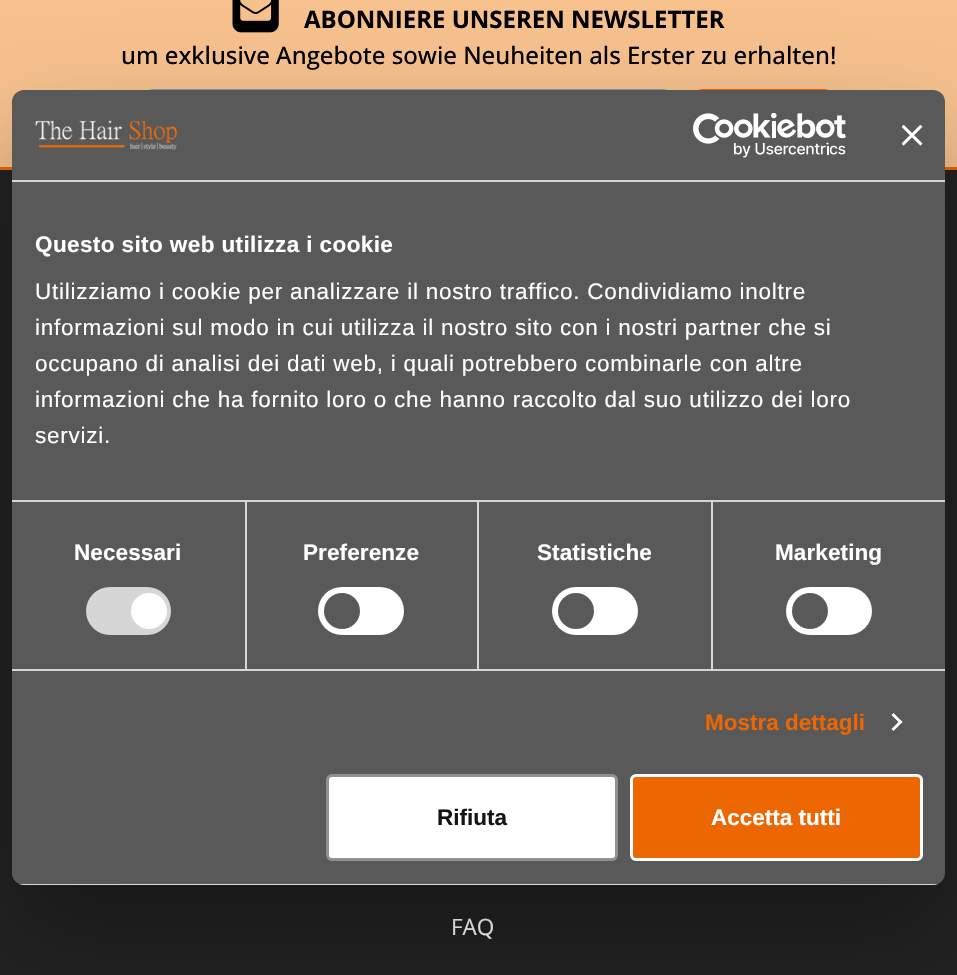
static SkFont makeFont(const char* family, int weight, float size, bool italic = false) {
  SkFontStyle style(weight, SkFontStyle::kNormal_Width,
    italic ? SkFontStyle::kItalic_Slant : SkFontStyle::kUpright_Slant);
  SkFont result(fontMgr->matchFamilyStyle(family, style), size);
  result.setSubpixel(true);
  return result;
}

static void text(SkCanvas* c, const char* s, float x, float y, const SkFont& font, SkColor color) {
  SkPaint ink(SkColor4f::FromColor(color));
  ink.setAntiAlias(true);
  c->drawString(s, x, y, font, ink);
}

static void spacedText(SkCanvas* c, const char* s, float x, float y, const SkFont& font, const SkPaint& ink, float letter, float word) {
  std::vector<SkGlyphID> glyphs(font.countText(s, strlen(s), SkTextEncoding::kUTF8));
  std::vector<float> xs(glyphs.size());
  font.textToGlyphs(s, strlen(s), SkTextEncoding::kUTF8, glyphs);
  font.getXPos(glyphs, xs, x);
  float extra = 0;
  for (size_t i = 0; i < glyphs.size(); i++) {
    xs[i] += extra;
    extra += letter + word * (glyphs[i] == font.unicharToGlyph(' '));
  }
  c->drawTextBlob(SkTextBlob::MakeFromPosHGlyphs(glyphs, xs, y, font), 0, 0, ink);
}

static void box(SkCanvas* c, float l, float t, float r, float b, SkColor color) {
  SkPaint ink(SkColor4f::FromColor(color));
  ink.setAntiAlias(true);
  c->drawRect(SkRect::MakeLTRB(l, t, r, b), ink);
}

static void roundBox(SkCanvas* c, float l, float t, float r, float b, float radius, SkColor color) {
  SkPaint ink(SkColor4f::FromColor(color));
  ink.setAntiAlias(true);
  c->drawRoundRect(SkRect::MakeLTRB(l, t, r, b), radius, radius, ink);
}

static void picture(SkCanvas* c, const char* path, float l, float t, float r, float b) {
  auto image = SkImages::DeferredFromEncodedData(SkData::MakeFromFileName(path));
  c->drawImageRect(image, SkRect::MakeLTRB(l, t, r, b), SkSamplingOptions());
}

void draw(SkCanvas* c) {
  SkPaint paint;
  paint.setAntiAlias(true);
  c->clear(0xfff7c18e);
  picture(c, "img_01.png", 232, 0, 279, 33);
  SkFont face1 = makeFont("Open Sans", 700, 24);
  text(c, "ABONNIERE UNSEREN NEWSLETTER", 304, 28, face1, 0xff000000);
  SkFont face2 = makeFont("Open Sans", 500, 24);
  text(c, "um exklusive Angebote sowie Neuheiten als Erster zu erhalten!", 121, 64, face2, 0xff000000);
  paint.setStyle(SkPaint::kStroke_Style);
  paint.setStrokeWidth(2);
  paint.setColor(0xff999999);
  c->drawRoundRect(SkRect::MakeLTRB(148, 90, 668, 136), 4, 4, paint);
  roundBox(c, 696, 89, 831, 137, 6, 0xffec6602);
  box(c, 0, 170, 957, 975, 0xff222222);
  box(c, 0, 167, 957, 170, 0xffec6602);
  SkFont face3 = makeFont("Open Sans", 400, 22.5f);
  text(c, "FAQ", 451, 935, face3, 0xffffffff);
  paint.setStyle(SkPaint::kFill_Style);
  paint.setColor(0x4d000000);
  paint.setMaskFilter(SkMaskFilter::MakeBlur(kNormal_SkBlurStyle, 51));
  c->drawRoundRect(SkRect::MakeLTRB(12, 138, 945, 933), 12, 12, paint);
  paint.setMaskFilter(nullptr);
  roundBox(c, 12, 90, 945, 885, 12, 0xff595959);
  box(c, 12, 180, 945, 182, 0xffd6d6d6);
  picture(c, "img_02.png", 35, 120, 178, 150);
  picture(c, "img_03.png", 693, 113, 846, 158);
  picture(c, "img_04.png", 902, 125, 923, 146);
  box(c, 245, 501, 247, 669, 0xffd6d6d6);
  box(c, 477, 501, 479, 669, 0xffd6d6d6);
  box(c, 711, 501, 713, 669, 0xffd6d6d6);
  box(c, 12, 500, 945, 502, 0xffd6d6d6);
  SkFont face4 = makeFont("Liberation Sans", 700, 22.5f);
  paint.setColor(0xffffffff);
  spacedText(c, "Questo sito web utilizza i cookie", 35, 252, face4, paint, 0.4f, 0);
  SkFont face5 = makeFont("Liberation Sans", 400, 22.5f);
  spacedText(c, "Utilizziamo i cookie per analizzare il nostro traffico. Condividiamo inoltre", 35, 299, face5, paint, 0.75f, 0);
  spacedText(c, "informazioni sul modo in cui utilizza il nostro sito con i nostri partner che si", 35, 335, face5, paint, 0.75f, 0);
  spacedText(c, "occupano di analisi dei dati web, i quali potrebbero combinarle con altre", 35, 371, face5, paint, 0.75f, 0);
  spacedText(c, "informazioni che ha fornito loro o che hanno raccolto dal suo utilizzo dei loro", 35, 407, face5, paint, 0.75f, 0);
  spacedText(c, "servizi.", 35, 443, face5, paint, 0.75f, 0);
  box(c, 12, 669, 945, 671, 0xffd6d6d6);
  spacedText(c, "Necessari", 74, 560, face4, paint, 0.1f, 0);
  roundBox(c, 86, 587, 171, 635, 24, 0xffd6d6d6);
  c->drawCircle(149, 611, 18, paint);
  spacedText(c, "Preferenze", 303, 560, face4, paint, 0.1f, 0);
  roundBox(c, 318, 587, 404, 635, 24, 0xffffffff);
  paint.setColor(0xff595959);
  c->drawCircle(342, 611, 18, paint);
  paint.setColor(0xffffffff);
  spacedText(c, "Statistiche", 537, 560, face4, paint, 0.1f, 0);
  roundBox(c, 552, 587, 638, 635, 24, 0xffffffff);
  paint.setColor(0xff595959);
  c->drawCircle(576, 611, 18, paint);
  paint.setColor(0xffffffff);
  spacedText(c, "Marketing", 775, 560, face4, paint, 0.1f, 0);
  roundBox(c, 786, 587, 872, 635, 24, 0xffffffff);
  paint.setColor(0xff595959);
  c->drawCircle(810, 611, 18, paint);
  text(c, "Mostra dettagli", 705, 730, face4, 0xffec6602);
  paint.setColor(0xffffffff);
  c->drawPath(SkPathBuilder().moveTo(893.5f, 713).lineTo(902.5f, 722).lineTo(900.5f, 724).lineTo(891.5f, 715).close().detach(), paint);
  c->drawPath(SkPathBuilder().moveTo(900.5f, 720).lineTo(902.5f, 722).lineTo(893.5f, 731).lineTo(891.5f, 729).close().detach(), paint);
  c->save();
  c->clipPath(SkPathBuilder().moveTo(24, 90).lineTo(933, 90).cubicTo(939.5f, 90, 945, 95.5f, 945, 102).lineTo(945, 873).cubicTo(945, 879.5f, 939.5f, 885, 933, 885).lineTo(24, 885).cubicTo(17.5f, 885, 12, 879.5f, 12, 873).lineTo(12, 102).cubicTo(12, 95.5f, 17.5f, 90, 24, 90).close().detach(), true);
  box(c, 12, 884, 945, 885, 0xffd6d6d6);
  c->restore();
  c->drawRoundRect(SkRect::MakeLTRB(327.5f, 775.5f, 616.5f, 859.5f), 4.5f, 4.5f, paint);
  paint.setStyle(SkPaint::kStroke_Style);
  paint.setStrokeWidth(3);
  paint.setColor(0xff919191);
  c->drawRoundRect(SkRect::MakeLTRB(327.5f, 775.5f, 616.5f, 859.5f), 4.5f, 4.5f, paint);
  text(c, "Rifiuta", 437, 825, face4, 0xff141414);
  paint.setStyle(SkPaint::kFill_Style);
  paint.setColor(0xffec6602);
  c->drawRoundRect(SkRect::MakeLTRB(631.5f, 775.5f, 921.5f, 859.5f), 4.5f, 4.5f, paint);
  paint.setStyle(SkPaint::kStroke_Style);
  paint.setColor(0xffffffff);
  c->drawRoundRect(SkRect::MakeLTRB(631.5f, 775.5f, 921.5f, 859.5f), 4.5f, 4.5f, paint);
  text(c, "Accetta tutti", 711, 825, face4, 0xffffffff);
}
